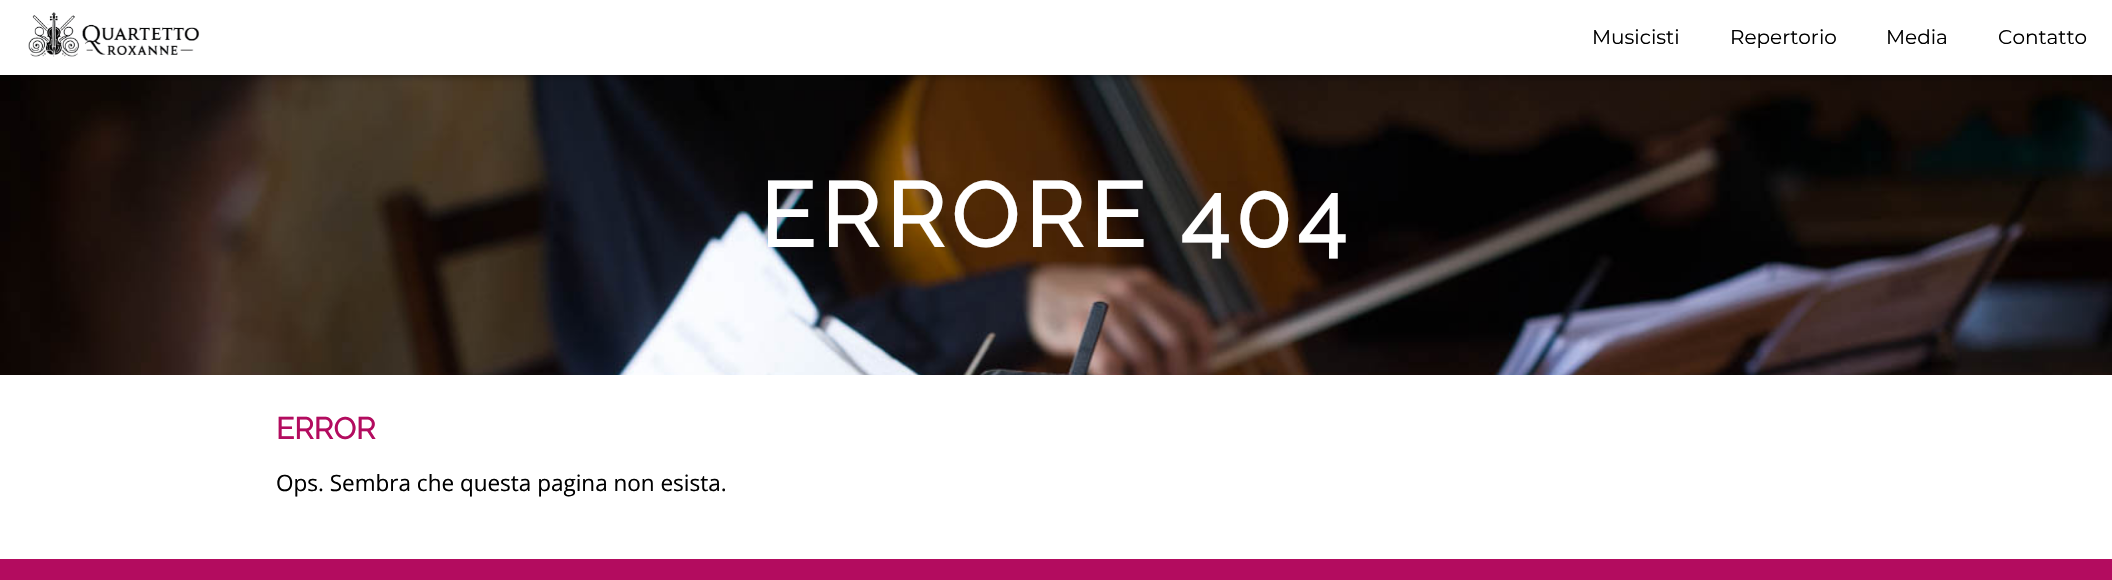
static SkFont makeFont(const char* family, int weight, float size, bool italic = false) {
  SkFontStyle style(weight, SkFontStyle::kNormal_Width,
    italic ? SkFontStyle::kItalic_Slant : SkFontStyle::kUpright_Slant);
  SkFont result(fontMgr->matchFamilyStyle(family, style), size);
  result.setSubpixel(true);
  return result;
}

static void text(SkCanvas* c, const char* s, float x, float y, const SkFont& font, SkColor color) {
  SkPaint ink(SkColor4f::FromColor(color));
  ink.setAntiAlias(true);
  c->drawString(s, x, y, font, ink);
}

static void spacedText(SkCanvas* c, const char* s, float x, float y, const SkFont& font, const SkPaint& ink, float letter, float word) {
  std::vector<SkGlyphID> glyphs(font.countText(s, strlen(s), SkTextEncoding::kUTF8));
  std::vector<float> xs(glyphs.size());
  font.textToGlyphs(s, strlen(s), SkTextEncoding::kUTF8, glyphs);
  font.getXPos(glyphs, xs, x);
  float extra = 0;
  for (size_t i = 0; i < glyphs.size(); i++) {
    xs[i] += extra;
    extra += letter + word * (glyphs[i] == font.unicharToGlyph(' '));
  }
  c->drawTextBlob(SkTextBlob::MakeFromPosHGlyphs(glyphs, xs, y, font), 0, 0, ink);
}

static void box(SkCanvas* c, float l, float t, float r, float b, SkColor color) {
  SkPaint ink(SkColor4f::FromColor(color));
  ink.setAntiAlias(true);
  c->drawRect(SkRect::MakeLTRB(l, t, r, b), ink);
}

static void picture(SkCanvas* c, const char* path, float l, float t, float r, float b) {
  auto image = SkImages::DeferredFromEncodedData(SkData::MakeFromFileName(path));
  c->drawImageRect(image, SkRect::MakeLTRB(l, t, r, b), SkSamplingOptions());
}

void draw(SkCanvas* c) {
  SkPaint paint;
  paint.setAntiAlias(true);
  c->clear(0xffffffff);
  picture(c, "img_02.png", 0, 75, 2112, 375);
  paint.setColor(0xff000000);
  paint.setMaskFilter(SkMaskFilter::MakeBlur(kNormal_SkBlurStyle, 6));
  c->drawRect(SkRect::MakeLTRB(8, 11, 2105, 71), paint);
  paint.setMaskFilter(nullptr);
  box(c, 0, 0, 2112, 75, 0xffffffff);
  picture(c, "img_01.png", 28, 12, 200, 57);
  SkFont face1 = makeFont("Montserrat", 100, 20);
  text(c, "Musicisti", 1592, 44, face1, 0xff000000);
  text(c, "Repertorio", 1730, 44, face1, 0xff000000);
  text(c, "Media", 1886, 44, face1, 0xff000000);
  text(c, "Contatto", 1998, 44, face1, 0xff000000);
  SkFont face2 = makeFont("Raleway", 700, 90);
  paint.setColor(0xffffffff);
  spacedText(c, "ERRORE 404", 760, 247, face2, paint, 6.25f, 0);
  SkFont face3 = makeFont("Raleway", 700, 30);
  text(c, "ERROR", 276, 439, face3, 0xffb30c5f);
  SkFont face4 = makeFont("Open Sans", 400, 22.5f);
  text(c, "Ops. Sembra che questa pagina non esista.", 276, 491, face4, 0xff000000);
  box(c, 0, 559, 2112, 580, 0xffb30c5f);
}
